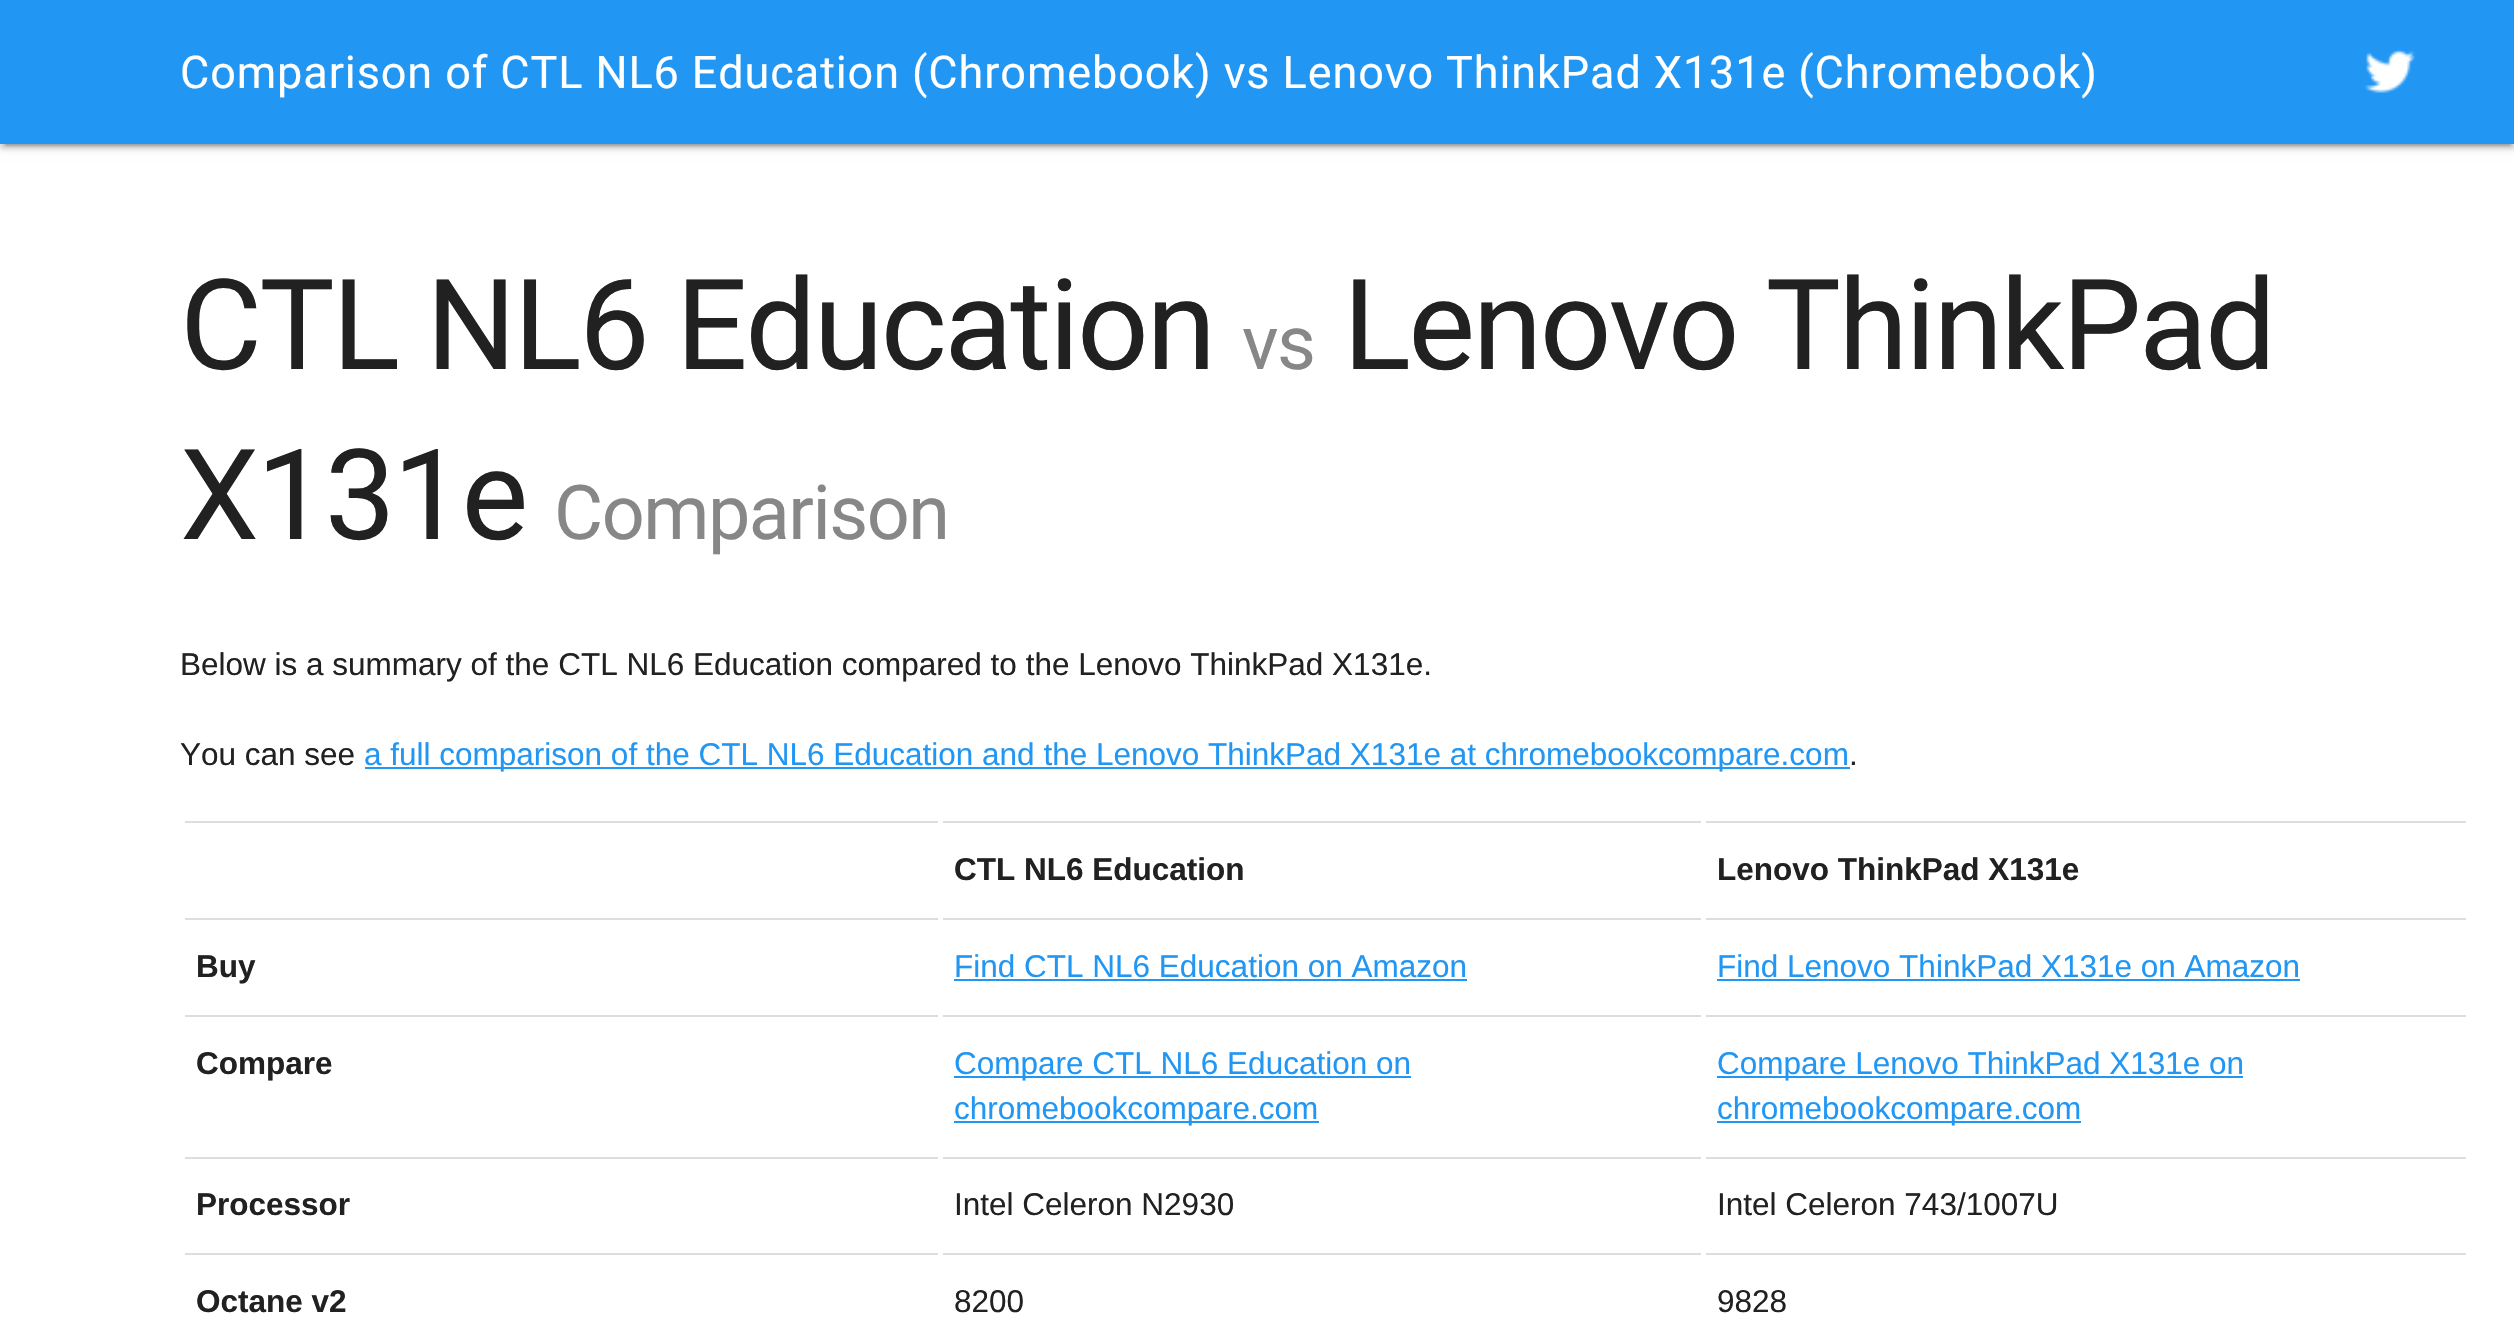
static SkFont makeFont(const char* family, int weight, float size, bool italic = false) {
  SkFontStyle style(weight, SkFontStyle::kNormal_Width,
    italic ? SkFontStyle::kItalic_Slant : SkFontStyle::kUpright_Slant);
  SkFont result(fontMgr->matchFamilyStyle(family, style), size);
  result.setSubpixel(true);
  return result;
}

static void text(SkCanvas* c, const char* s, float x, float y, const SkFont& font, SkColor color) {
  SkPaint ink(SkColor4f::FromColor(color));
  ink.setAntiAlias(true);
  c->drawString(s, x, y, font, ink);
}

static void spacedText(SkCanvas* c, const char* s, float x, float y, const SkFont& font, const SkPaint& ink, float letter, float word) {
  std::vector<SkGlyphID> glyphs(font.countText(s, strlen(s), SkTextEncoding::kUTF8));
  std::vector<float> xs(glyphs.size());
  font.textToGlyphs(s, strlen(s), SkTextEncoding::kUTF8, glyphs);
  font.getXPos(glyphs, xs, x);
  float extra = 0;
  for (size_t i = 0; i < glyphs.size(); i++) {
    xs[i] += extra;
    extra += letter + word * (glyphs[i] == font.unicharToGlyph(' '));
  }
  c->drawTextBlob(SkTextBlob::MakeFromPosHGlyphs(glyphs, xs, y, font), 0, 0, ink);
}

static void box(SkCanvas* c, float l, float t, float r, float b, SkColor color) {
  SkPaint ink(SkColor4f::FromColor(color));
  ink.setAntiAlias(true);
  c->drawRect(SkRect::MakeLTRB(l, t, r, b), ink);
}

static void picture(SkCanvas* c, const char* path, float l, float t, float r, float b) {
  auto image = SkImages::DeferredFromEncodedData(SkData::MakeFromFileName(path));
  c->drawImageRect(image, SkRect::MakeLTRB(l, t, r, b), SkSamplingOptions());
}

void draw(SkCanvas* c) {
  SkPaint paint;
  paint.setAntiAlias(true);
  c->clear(0xffffffff);
  paint.setColor(0x1f000000);
  paint.setMaskFilter(SkMaskFilter::MakeBlur(kNormal_SkBlurStyle, 5.5f));
  c->drawRect(SkRect::MakeLTRB(0, 2, 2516, 146), paint);
  paint.setMaskFilter(nullptr);
  paint.setColor(0x33000000);
  paint.setMaskFilter(SkMaskFilter::MakeBlur(kNormal_SkBlurStyle, 1));
  c->drawRect(SkRect::MakeLTRB(5, 11, 2511, 146), paint);
  paint.setMaskFilter(nullptr);
  paint.setColor(0x24000000);
  paint.setMaskFilter(SkMaskFilter::MakeBlur(kNormal_SkBlurStyle, 2));
  c->drawRect(SkRect::MakeLTRB(0, 5, 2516, 149), paint);
  paint.setMaskFilter(nullptr);
  box(c, 0, 0, 2514, 144, 0xff2196f3);
  SkFont face1 = makeFont("Roboto", 400, 45);
  paint.setColor(0xffffffff);
  spacedText(c, "Comparison of CTL NL6 Education (Chromebook) vs Lenovo ThinkPad X131e (Chromebook)", 180, 88, face1, paint, 0.9f, 0);
  picture(c, "img_01.png", 2364, 49, 2415, 93);
  SkFont face2 = makeFont("Roboto", 400, 126);
  paint.setColor(0xff212121);
  spacedText(c, "CTL NL6 Education", 180, 369, face2, paint, -2.5f, 0);
  SkFont face3 = makeFont("Roboto", 400, 75.5f);
  paint.setColor(0xff878787);
  spacedText(c, "vs", 1242, 369, face3, paint, -1.5f, 0);
  paint.setColor(0xff212121);
  spacedText(c, "Lenovo ThinkPad", 1343, 369, face2, paint, -2.5f, 0);
  spacedText(c, "X131e", 180, 539, face2, paint, -2.5f, 0);
  paint.setColor(0xff878787);
  spacedText(c, "Comparison", 554, 539, face3, paint, -1.5f, 0);
  SkFont face4 = makeFont("Liberation Sans", 400, 31.5f);
  text(c, "Below is a summary of the CTL NL6 Education compared to the Lenovo ThinkPad X131e.", 180, 675, face4, 0xff212121);
  text(c, "You can see", 180, 765, face4, 0xff212121);
  box(c, 365, 767, 1850, 769, 0xff2196f3);
  text(c, "a full comparison of the CTL NL6 Education and the Lenovo ThinkPad X131e at chromebookcompare.com", 364, 765, face4, 0xff2196f3);
  text(c, ".", 1849, 765, face4, 0xff212121);
  box(c, 185, 821, 938, 823, 0xffdddddd);
  box(c, 943, 821, 1701, 823, 0xffdddddd);
  SkFont face5 = makeFont("Liberation Sans", 700, 31.5f);
  text(c, "CTL NL6 Education", 954, 880, face5, 0xff212121);
  box(c, 1706, 821, 2466, 823, 0xffdddddd);
  text(c, "Lenovo ThinkPad X131e", 1717, 880, face5, 0xff212121);
  box(c, 185, 918, 938, 920, 0xffdddddd);
  text(c, "Buy", 196, 977, face5, 0xff212121);
  box(c, 943, 918, 1701, 920, 0xffdddddd);
  text(c, "Find CTL NL6 Education on Amazon", 954, 977, face4, 0xff2196f3);
  box(c, 954, 979, 1467, 981, 0xff2196f3);
  box(c, 1706, 918, 2466, 920, 0xffdddddd);
  text(c, "Find Lenovo ThinkPad X131e on Amazon", 1717, 977, face4, 0xff2196f3);
  box(c, 1717, 979, 2300, 981, 0xff2196f3);
  box(c, 185, 1015, 938, 1017, 0xffdddddd);
  text(c, "Compare", 196, 1074, face5, 0xff212121);
  box(c, 943, 1015, 1701, 1017, 0xffdddddd);
  box(c, 954, 1076, 1411, 1078, 0xff2196f3);
  text(c, "Compare CTL NL6 Education on", 954, 1074, face4, 0xff2196f3);
  box(c, 954, 1121, 1319, 1123, 0xff2196f3);
  text(c, "chromebookcompare.com", 954, 1119, face4, 0xff2196f3);
  box(c, 1706, 1015, 2466, 1017, 0xffdddddd);
  box(c, 1717, 1076, 2243, 1078, 0xff2196f3);
  text(c, "Compare Lenovo ThinkPad X131e on", 1717, 1074, face4, 0xff2196f3);
  box(c, 1717, 1121, 2081, 1123, 0xff2196f3);
  text(c, "chromebookcompare.com", 1717, 1119, face4, 0xff2196f3);
  box(c, 185, 1157, 938, 1159, 0xffdddddd);
  text(c, "Processor", 196, 1215, face5, 0xff212121);
  box(c, 943, 1157, 1701, 1159, 0xffdddddd);
  text(c, "Intel Celeron N2930", 954, 1215, face4, 0xff212121);
  box(c, 1706, 1157, 2466, 1159, 0xffdddddd);
  text(c, "Intel Celeron 743/1007U", 1717, 1215, face4, 0xff212121);
  box(c, 185, 1253, 938, 1255, 0xffdddddd);
  text(c, "Octane v2", 196, 1312, face5, 0xff212121);
  box(c, 943, 1253, 1701, 1255, 0xffdddddd);
  text(c, "8200", 954, 1312, face4, 0xff212121);
  box(c, 1706, 1253, 2466, 1255, 0xffdddddd);
  text(c, "9828", 1717, 1312, face4, 0xff212121);
}
